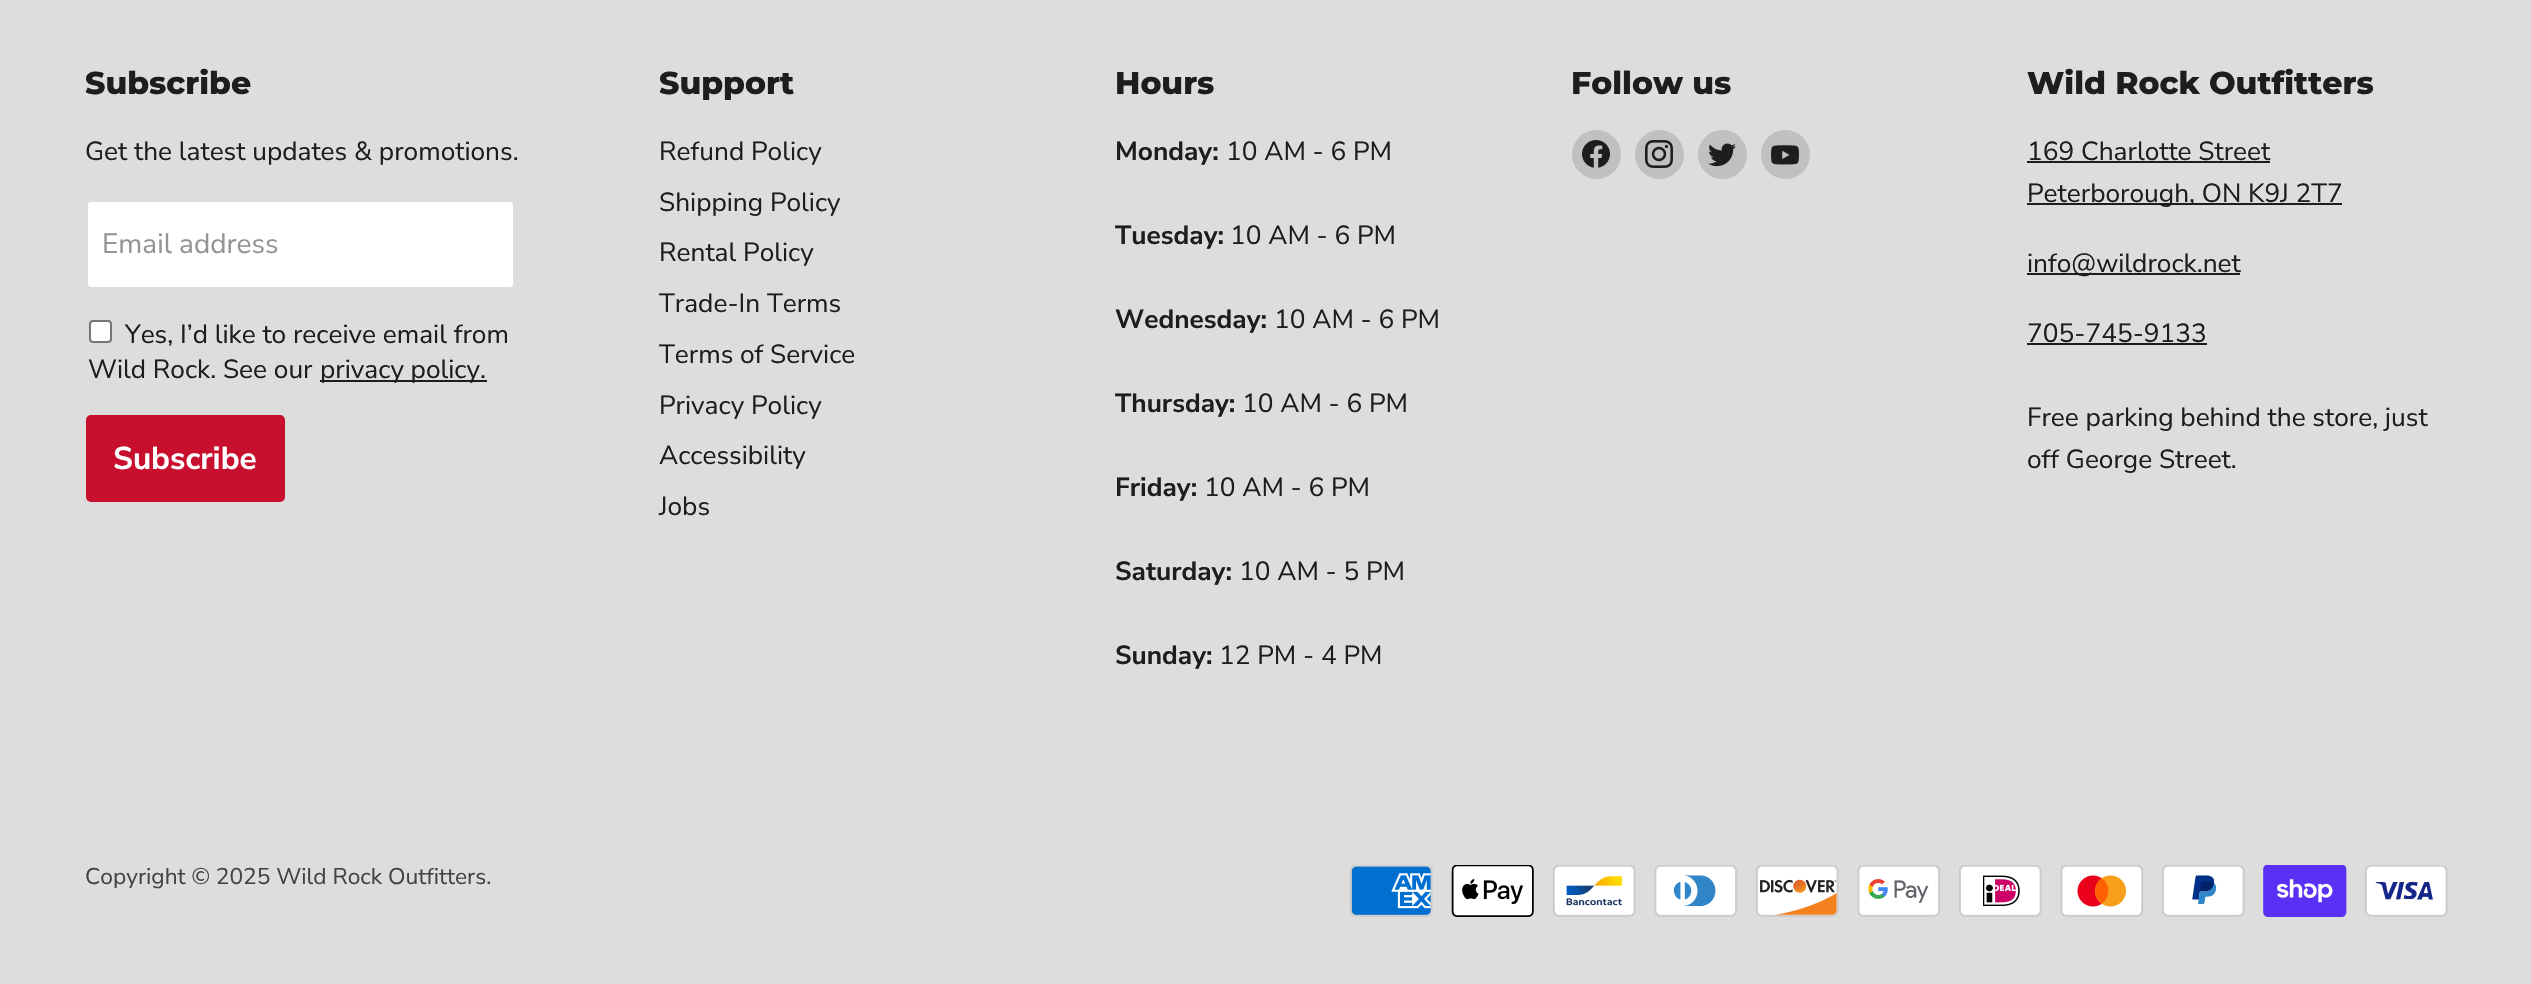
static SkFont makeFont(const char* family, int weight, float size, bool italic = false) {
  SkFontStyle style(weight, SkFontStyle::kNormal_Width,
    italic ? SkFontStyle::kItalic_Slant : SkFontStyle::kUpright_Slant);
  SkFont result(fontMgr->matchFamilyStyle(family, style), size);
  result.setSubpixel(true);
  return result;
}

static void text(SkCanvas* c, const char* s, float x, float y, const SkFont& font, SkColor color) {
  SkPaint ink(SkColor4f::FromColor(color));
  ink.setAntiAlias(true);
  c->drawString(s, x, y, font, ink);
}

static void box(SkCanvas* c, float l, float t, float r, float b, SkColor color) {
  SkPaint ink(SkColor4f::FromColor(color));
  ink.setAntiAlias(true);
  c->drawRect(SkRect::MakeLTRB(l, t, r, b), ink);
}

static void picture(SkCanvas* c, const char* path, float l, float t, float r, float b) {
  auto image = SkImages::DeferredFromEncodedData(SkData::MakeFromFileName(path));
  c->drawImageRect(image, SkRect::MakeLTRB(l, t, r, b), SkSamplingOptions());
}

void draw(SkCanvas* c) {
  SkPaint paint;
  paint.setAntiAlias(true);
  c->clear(0xffdddddd);
  SkFont face1 = makeFont("Montserrat", 800, 31.5f);
  text(c, "Subscribe", 85, 94, face1, 0xff1d1d1d);
  SkFont face2 = makeFont("Nunito Sans", 400, 26.25f);
  text(c, "Get the latest updates & promotions.", 85, 160, face2, 0xff1d1d1d);
  paint.setColor(0xffffffff);
  c->drawRoundRect(SkRect::MakeLTRB(87, 201, 514, 288), 4, 4, paint);
  paint.setStyle(SkPaint::kStroke_Style);
  paint.setStrokeWidth(2);
  paint.setColor(0xffdddddd);
  c->drawRoundRect(SkRect::MakeLTRB(87, 201, 514, 288), 4, 4, paint);
  SkFont face3 = makeFont("Nunito Sans", 400, 28);
  text(c, "Email address", 102, 253, face3, 0xff949494);
  paint.setStyle(SkPaint::kFill_Style);
  paint.setColor(0xffffffff);
  c->drawRoundRect(SkRect::MakeLTRB(90, 321, 111, 342), 3, 3, paint);
  paint.setStyle(SkPaint::kStroke_Style);
  paint.setColor(0xff767676);
  c->drawRoundRect(SkRect::MakeLTRB(90, 321, 111, 342), 3, 3, paint);
  text(c, "Yes, I’d like to receive email from", 125, 343, face2, 0xff1d1d1d);
  text(c, "Wild Rock. See our", 88, 378, face2, 0xff1d1d1d);
  box(c, 320, 380, 487, 382, 0xff1d1d1d);
  text(c, "privacy policy.", 320, 378, face2, 0xff1d1d1d);
  paint.setStyle(SkPaint::kFill_Style);
  paint.setColor(0xffc8102e);
  c->drawRoundRect(SkRect::MakeLTRB(87, 416, 284, 501), 4, 4, paint);
  paint.setStyle(SkPaint::kStroke_Style);
  c->drawRoundRect(SkRect::MakeLTRB(87, 416, 284, 501), 4, 4, paint);
  SkFont face4 = makeFont("Nunito Sans", 700, 31.5f);
  text(c, "Subscribe", 113, 469, face4, 0xffffffff);
  text(c, "Support", 659, 94, face1, 0xff1d1d1d);
  text(c, "Refund Policy", 659, 160, face2, 0xff1d1d1d);
  text(c, "Shipping Policy", 659, 211, face2, 0xff1d1d1d);
  text(c, "Rental Policy", 659, 261, face2, 0xff1d1d1d);
  text(c, "Trade-In Terms", 659, 312, face2, 0xff1d1d1d);
  text(c, "Terms of Service", 659, 363, face2, 0xff1d1d1d);
  text(c, "Privacy Policy", 659, 414, face2, 0xff1d1d1d);
  text(c, "Accessibility", 659, 464, face2, 0xff1d1d1d);
  text(c, "Jobs", 659, 515, face2, 0xff1d1d1d);
  text(c, "Hours", 1115, 94, face1, 0xff1d1d1d);
  SkFont face5 = makeFont("Nunito Sans", 700, 26.25f);
  text(c, "Monday:", 1115, 160, face5, 0xff1d1d1d);
  text(c, "10 AM - 6 PM", 1226, 160, face2, 0xff1d1d1d);
  text(c, "Tuesday:", 1115, 244, face5, 0xff1d1d1d);
  text(c, "10 AM - 6 PM", 1230, 244, face2, 0xff1d1d1d);
  text(c, "Wednesday:", 1115, 328, face5, 0xff1d1d1d);
  text(c, "10 AM - 6 PM", 1274, 328, face2, 0xff1d1d1d);
  text(c, "Thursday:", 1115, 412, face5, 0xff1d1d1d);
  text(c, "10 AM - 6 PM", 1242, 412, face2, 0xff1d1d1d);
  text(c, "Friday:", 1115, 496, face5, 0xff1d1d1d);
  text(c, "10 AM - 6 PM", 1204, 496, face2, 0xff1d1d1d);
  text(c, "Saturday:", 1115, 580, face5, 0xff1d1d1d);
  text(c, "10 AM - 5 PM", 1239, 580, face2, 0xff1d1d1d);
  text(c, "Sunday:", 1115, 664, face5, 0xff1d1d1d);
  text(c, "12 PM - 4 PM", 1219, 664, face2, 0xff1d1d1d);
  text(c, "Follow us", 1571, 94, face1, 0xff1d1d1d);
  paint.setStyle(SkPaint::kFill_Style);
  paint.setColor(0xffc0c0c0);
  c->drawCircle(1596.5f, 154.5f, 24.5f, paint);
  picture(c, "img_01.png", 1582, 140, 1610, 168);
  c->drawCircle(1659.5f, 154.5f, 24.5f, paint);
  picture(c, "img_02.png", 1645, 140, 1673, 168);
  c->drawCircle(1722.5f, 154.5f, 24.5f, paint);
  picture(c, "img_03.png", 1708, 143, 1736, 167);
  c->drawCircle(1785.5f, 154.5f, 24.5f, paint);
  picture(c, "img_04.png", 1771, 145, 1799, 165);
  text(c, "Wild Rock Outfitters", 2027, 94, face1, 0xff1d1d1d);
  text(c, "169 Charlotte Street", 2027, 160, face2, 0xff1d1d1d);
  box(c, 2027, 161, 2270, 163, 0xff1d1d1d);
  box(c, 2027, 203, 2342, 205, 0xff1d1d1d);
  text(c, "Peterborough, ON K9J 2T7", 2027, 202, face2, 0xff1d1d1d);
  box(c, 2027, 273, 2240, 275, 0xff1d1d1d);
  text(c, "info@wildrock.net", 2027, 272, face2, 0xff1d1d1d);
  text(c, "705-745-9133", 2027, 342, face2, 0xff1d1d1d);
  box(c, 2027, 343, 2207, 345, 0xff1d1d1d);
  text(c, "Free parking behind the store, just", 2027, 426, face2, 0xff1d1d1d);
  text(c, "off George Street.", 2027, 468, face2, 0xff1d1d1d);
  SkFont face6 = makeFont("Nunito Sans", 400, 22.75f);
  text(c, "Copyright © 2025 Wild Rock Outfitters.", 85, 884, face6, 0xff434343);
  picture(c, "img_05.png", 1349, 865, 1433, 917);
  picture(c, "img_06.png", 1451, 865, 1534, 917);
  picture(c, "img_07.png", 1552, 865, 1636, 917);
  picture(c, "img_08.png", 1654, 865, 1738, 917);
  picture(c, "img_09.png", 1755, 865, 1839, 917);
  picture(c, "img_10.png", 1857, 865, 1941, 917);
  picture(c, "img_11.png", 1959, 865, 2042, 917);
  picture(c, "img_12.png", 2060, 865, 2144, 917);
  picture(c, "img_13.png", 2161, 865, 2245, 917);
  picture(c, "img_14.png", 2263, 865, 2347, 917);
  picture(c, "img_15.png", 2364, 865, 2448, 917);
}
